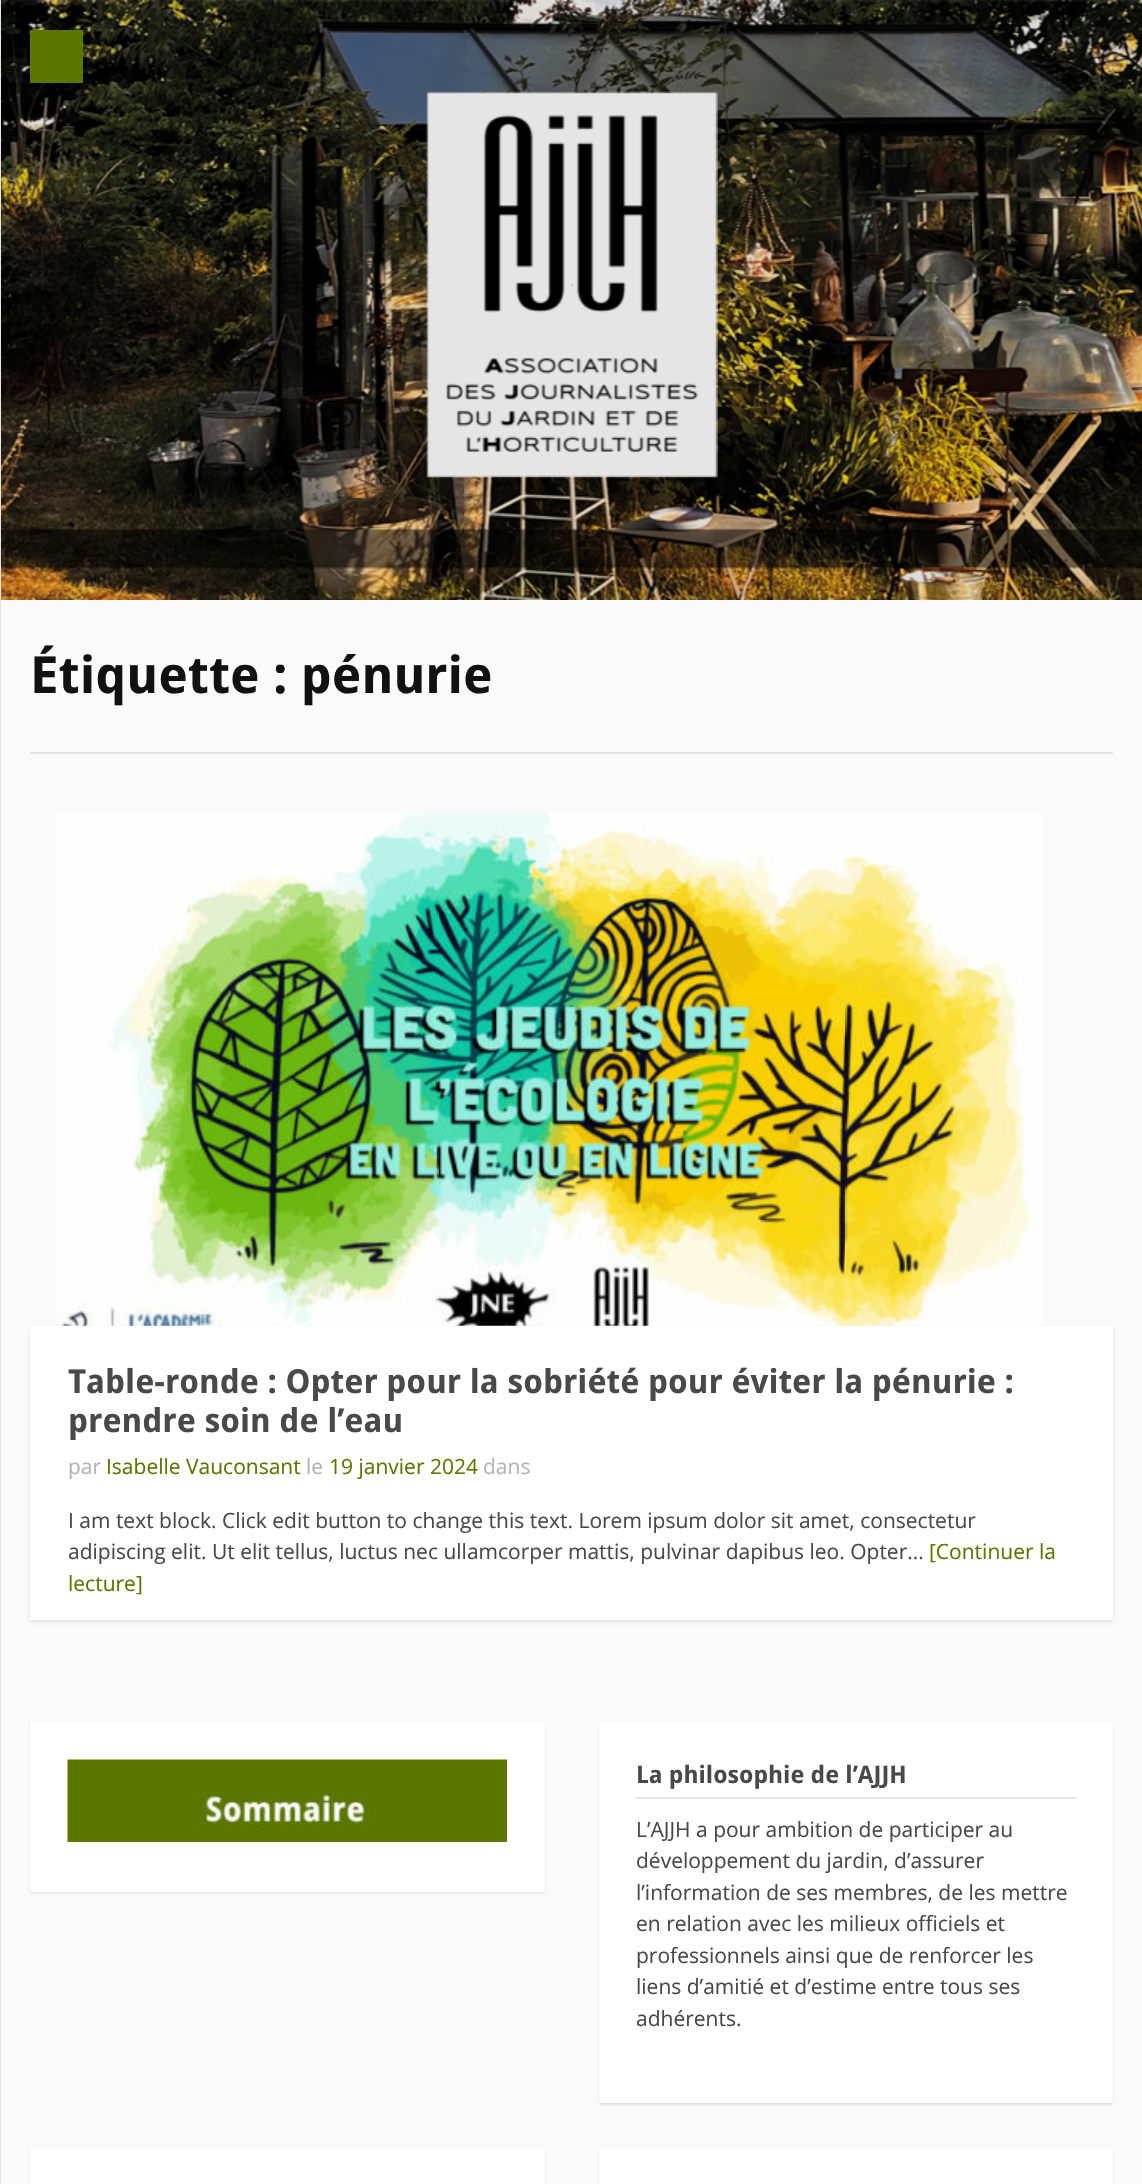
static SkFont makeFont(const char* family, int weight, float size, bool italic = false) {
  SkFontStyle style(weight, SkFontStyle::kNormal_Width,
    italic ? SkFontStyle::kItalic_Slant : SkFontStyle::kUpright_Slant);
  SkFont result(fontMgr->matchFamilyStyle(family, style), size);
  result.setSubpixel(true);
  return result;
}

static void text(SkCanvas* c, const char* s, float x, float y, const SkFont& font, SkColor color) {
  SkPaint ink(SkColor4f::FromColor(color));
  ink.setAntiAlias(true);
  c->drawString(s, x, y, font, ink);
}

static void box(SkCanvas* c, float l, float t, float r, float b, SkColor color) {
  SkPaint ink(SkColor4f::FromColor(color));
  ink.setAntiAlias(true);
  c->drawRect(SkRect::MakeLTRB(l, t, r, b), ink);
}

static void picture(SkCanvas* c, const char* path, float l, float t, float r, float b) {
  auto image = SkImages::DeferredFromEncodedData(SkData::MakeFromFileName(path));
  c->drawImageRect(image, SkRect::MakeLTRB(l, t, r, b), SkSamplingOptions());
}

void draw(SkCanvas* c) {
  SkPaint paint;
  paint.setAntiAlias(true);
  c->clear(0xfffafafa);
  picture(c, "img_01.png", 1, 0, 1142, 600);
  box(c, 0, 0, 1, 2184, 0xffe5e5e5);
  paint.setColor(0x33000000);
  paint.setMaskFilter(SkMaskFilter::MakeBlur(kNormal_SkBlurStyle, 1.5f));
  c->drawRect(SkRect::MakeLTRB(30, 32, 83, 84), paint);
  paint.setMaskFilter(nullptr);
  box(c, 30, 30, 83, 83, 0xff5b7700);
  box(c, 572, 284, 573, 286, 0xffa5a5a5);
  box(c, 30, 752, 1113, 754, 0xffe5e5e5);
  SkFont face1 = makeFont("Droid Sans", 700, 51);
  text(c, "Étiquette : pénurie", 30, 693, face1, 0xff111111);
  picture(c, "img_02.png", 56, 813, 1042, 1326);
  paint.setColor(0x1a000000);
  paint.setMaskFilter(SkMaskFilter::MakeBlur(kNormal_SkBlurStyle, 1.5f));
  c->drawRect(SkRect::MakeLTRB(30, 1328, 1113, 1622), paint);
  paint.setMaskFilter(nullptr);
  box(c, 30, 1326, 1113, 1620, 0xffffffff);
  SkFont face2 = makeFont("Droid Sans", 700, 33);
  text(c, "Table-ronde : Opter pour la sobriété pour éviter la pénurie :", 68, 1393, face2, 0xff494949);
  text(c, "prendre soin de l’eau", 68, 1432, face2, 0xff494949);
  SkFont face3 = makeFont("Open Sans", 400, 21);
  text(c, "par", 68, 1474, face3, 0xffb4b4b4);
  text(c, "Isabelle Vauconsant", 106, 1474, face3, 0xff5b7700);
  text(c, "le", 306, 1474, face3, 0xffb4b4b4);
  text(c, "19 janvier 2024", 329, 1474, face3, 0xff5b7700);
  text(c, "dans", 483, 1474, face3, 0xffb4b4b4);
  text(c, "I am text block. Click edit button to change this text. Lorem ipsum dolor sit amet, consectetur", 68, 1528, face3, 0xff494949);
  text(c, "adipiscing elit. Ut elit tellus, luctus nec ullamcorper mattis, pulvinar dapibus leo. Opter...", 68, 1559, face3, 0xff494949);
  text(c, "[Continuer la", 929, 1559, face3, 0xff5b7700);
  text(c, "lecture]", 68, 1591, face3, 0xff5b7700);
  paint.setMaskFilter(SkMaskFilter::MakeBlur(kNormal_SkBlurStyle, 1));
  c->drawRect(SkRect::MakeLTRB(30, 1724, 545, 1893), paint);
  paint.setMaskFilter(nullptr);
  box(c, 30, 1722, 545, 1892, 0xffffffff);
  picture(c, "img_03.png", 67, 1759, 507, 1842);
  paint.setMaskFilter(SkMaskFilter::MakeBlur(kNormal_SkBlurStyle, 1));
  c->drawRect(SkRect::MakeLTRB(599, 1724, 1113, 2105), paint);
  paint.setMaskFilter(nullptr);
  box(c, 599, 1722, 1113, 2103, 0xffffffff);
  box(c, 636, 1797, 1076, 1799, 0xffe6e6e6);
  SkFont face4 = makeFont("Droid Sans", 700, 24);
  text(c, "La philosophie de l’AJJH", 636, 1783, face4, 0xff494949);
  text(c, "L’AJJH a pour ambition de participer au", 636, 1837, face3, 0xff494949);
  text(c, "développement du jardin, d’assurer", 636, 1868, face3, 0xff494949);
  text(c, "l’information de ses membres, de les mettre", 636, 1900, face3, 0xff494949);
  text(c, "en relation avec les milieux officiels et", 636, 1931, face3, 0xff494949);
  text(c, "professionnels ainsi que de renforcer les", 636, 1963, face3, 0xff494949);
  text(c, "liens d’amitié et d’estime entre tous ses", 636, 1994, face3, 0xff494949);
  text(c, "adhérents.", 636, 2026, face3, 0xff494949);
  paint.setMaskFilter(SkMaskFilter::MakeBlur(kNormal_SkBlurStyle, 1));
  c->drawRect(SkRect::MakeLTRB(30, 2150, 545, 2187), paint);
  paint.setMaskFilter(nullptr);
  box(c, 30, 2148, 545, 2184, 0xffffffff);
  paint.setMaskFilter(SkMaskFilter::MakeBlur(kNormal_SkBlurStyle, 1));
  c->drawRect(SkRect::MakeLTRB(599, 2150, 1113, 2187), paint);
  paint.setMaskFilter(nullptr);
  box(c, 599, 2148, 1113, 2184, 0xffffffff);
}
